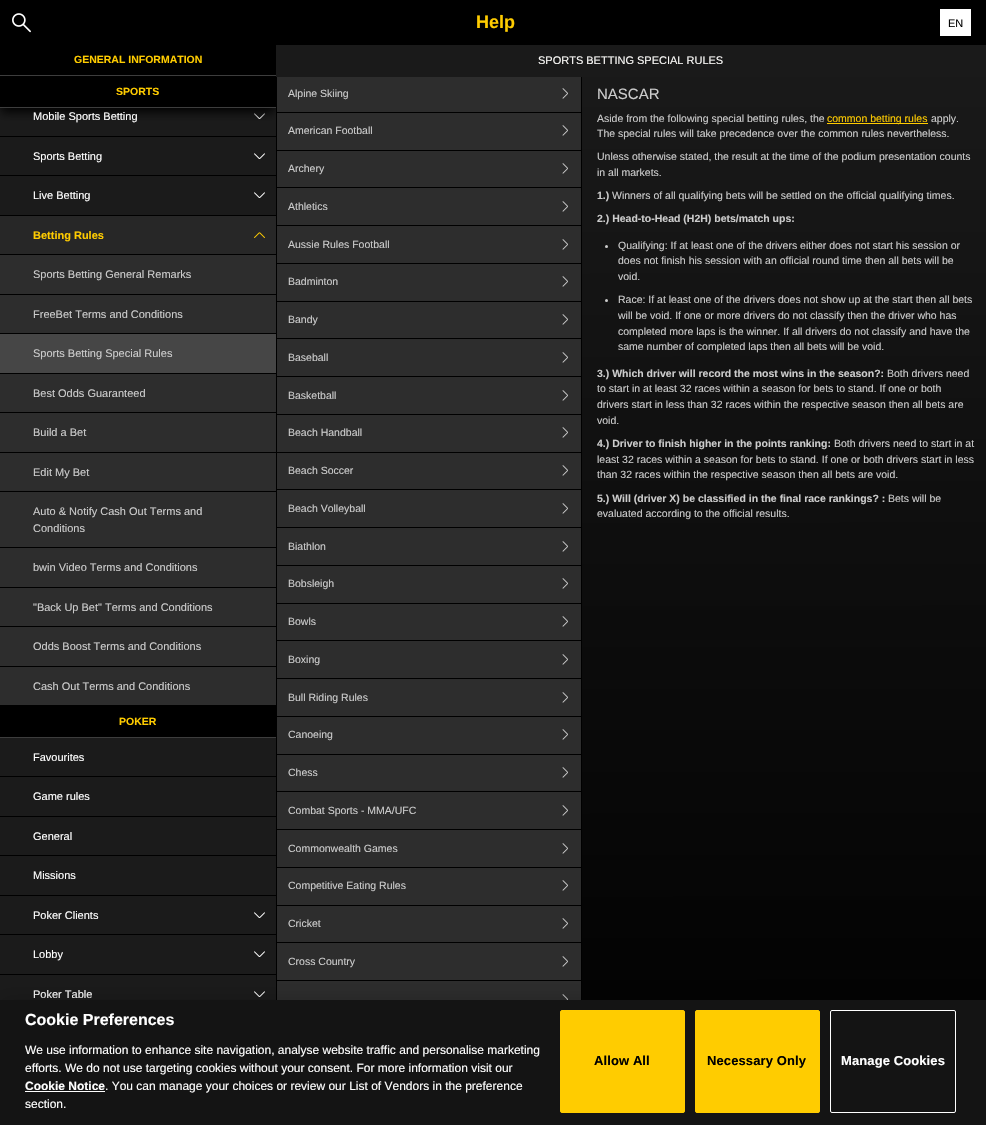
static SkFont makeFont(const char* family, int weight, float size, bool italic = false) {
  SkFontStyle style(weight, SkFontStyle::kNormal_Width,
    italic ? SkFontStyle::kItalic_Slant : SkFontStyle::kUpright_Slant);
  SkFont result(fontMgr->matchFamilyStyle(family, style), size);
  result.setSubpixel(true);
  return result;
}

static void text(SkCanvas* c, const char* s, float x, float y, const SkFont& font, SkColor color) {
  SkPaint ink(SkColor4f::FromColor(color));
  ink.setAntiAlias(true);
  c->drawString(s, x, y, font, ink);
}

static void spacedText(SkCanvas* c, const char* s, float x, float y, const SkFont& font, const SkPaint& ink, float letter, float word) {
  std::vector<SkGlyphID> glyphs(font.countText(s, strlen(s), SkTextEncoding::kUTF8));
  std::vector<float> xs(glyphs.size());
  font.textToGlyphs(s, strlen(s), SkTextEncoding::kUTF8, glyphs);
  font.getXPos(glyphs, xs, x);
  float extra = 0;
  for (size_t i = 0; i < glyphs.size(); i++) {
    xs[i] += extra;
    extra += letter + word * (glyphs[i] == font.unicharToGlyph(' '));
  }
  c->drawTextBlob(SkTextBlob::MakeFromPosHGlyphs(glyphs, xs, y, font), 0, 0, ink);
}

static void box(SkCanvas* c, float l, float t, float r, float b, SkColor color) {
  SkPaint ink(SkColor4f::FromColor(color));
  ink.setAntiAlias(true);
  c->drawRect(SkRect::MakeLTRB(l, t, r, b), ink);
}

static void picture(SkCanvas* c, const char* path, float l, float t, float r, float b) {
  auto image = SkImages::DeferredFromEncodedData(SkData::MakeFromFileName(path));
  c->drawImageRect(image, SkRect::MakeLTRB(l, t, r, b), SkSamplingOptions());
}

void draw(SkCanvas* c) {
  SkPaint paint;
  paint.setAntiAlias(true);
  c->clear(0xffffffff);
  box(c, 0, 108, 276, 1000, 0xff1b1b1b);
  picture(c, "img_02.png", 254, 113, 265, 119);
  box(c, 276, 77, 277, 1000, 0xff000000);
  box(c, 277, 77, 581, 112, 0xff2d2d2d);
  box(c, 277, 112, 581, 113, 0xff000000);
  box(c, 277, 113, 581, 150, 0xff2d2d2d);
  c->save();
  c->clipRect(SkRect::MakeLTRB(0, 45, 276, 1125));
  paint.setColor(0xff000000);
  paint.setMaskFilter(SkMaskFilter::MakeBlur(kNormal_SkBlurStyle, 5));
  c->drawRect(SkRect::MakeLTRB(1, 51, 275, 112), paint);
  paint.setMaskFilter(nullptr);
  c->restore();
  box(c, 0, 0, 986, 45, 0xff000000);
  picture(c, "img_01.png", 12, 13, 31, 33);
  SkFont face1 = makeFont("Liberation Sans", 700, 18);
  text(c, "Help", 476, 28, face1, 0xffffcc00);
  box(c, 940, 9, 971, 36, 0xffffffff);
  SkFont face2 = makeFont("Liberation Sans", 400, 11);
  text(c, "EN", 948, 27, face2, 0xff000000);
  box(c, 0, 45, 276, 75, 0xff000000);
  box(c, 0, 75, 276, 76, 0xff3d3d3d);
  SkFont face3 = makeFont("Liberation Sans", 700, 10.5f);
  text(c, "GENERAL INFORMATION", 74, 63, face3, 0xffffcc00);
  box(c, 0, 76, 276, 107, 0xff000000);
  box(c, 0, 107, 276, 108, 0xff3d3d3d);
  text(c, "SPORTS", 116, 95, face3, 0xffffcc00);
  box(c, 0, 136, 276, 137, 0xff000000);
  text(c, "Mobile Sports Betting", 33, 120, face2, 0xffffffff);
  box(c, 0, 175, 276, 176, 0xff000000);
  text(c, "Sports Betting", 33, 160, face2, 0xffffffff);
  picture(c, "img_02.png", 254, 153, 265, 159);
  box(c, 0, 215, 276, 216, 0xff000000);
  text(c, "Live Betting", 33, 199, face2, 0xffffffff);
  picture(c, "img_02.png", 254, 192, 265, 198);
  box(c, 0, 216, 276, 254, 0xff272727);
  SkFont face4 = makeFont("Liberation Sans", 700, 11);
  text(c, "Betting Rules", 33, 239, face4, 0xffffcc00);
  picture(c, "img_03.png", 254, 232, 265, 238);
  box(c, 0, 254, 276, 255, 0xff000000);
  box(c, 0, 294, 276, 295, 0xff000000);
  box(c, 0, 255, 276, 294, 0xff2d2d2d);
  text(c, "Sports Betting General Remarks", 33, 278, face2, 0xffcccccc);
  box(c, 0, 333, 276, 334, 0xff000000);
  box(c, 0, 295, 276, 333, 0xff2d2d2d);
  text(c, "FreeBet Terms and Conditions", 33, 318, face2, 0xffcccccc);
  box(c, 0, 373, 276, 374, 0xff000000);
  box(c, 0, 334, 276, 373, 0xff464646);
  text(c, "Sports Betting Special Rules", 33, 357, face2, 0xffcccccc);
  box(c, 0, 412, 276, 413, 0xff000000);
  box(c, 0, 374, 276, 412, 0xff2d2d2d);
  text(c, "Best Odds Guaranteed", 33, 397, face2, 0xffcccccc);
  box(c, 0, 452, 276, 453, 0xff000000);
  box(c, 0, 413, 276, 452, 0xff2d2d2d);
  text(c, "Build a Bet", 33, 436, face2, 0xffcccccc);
  box(c, 0, 491, 276, 492, 0xff000000);
  box(c, 0, 453, 276, 491, 0xff2d2d2d);
  text(c, "Edit My Bet", 33, 476, face2, 0xffcccccc);
  box(c, 0, 547, 276, 548, 0xff000000);
  box(c, 0, 492, 276, 547, 0xff2d2d2d);
  text(c, "Auto & Notify Cash Out Terms and", 33, 515, face2, 0xffcccccc);
  text(c, "Conditions", 33, 532, face2, 0xffcccccc);
  box(c, 0, 587, 276, 588, 0xff000000);
  box(c, 0, 548, 276, 587, 0xff2d2d2d);
  text(c, "bwin Video Terms and Conditions", 33, 571, face2, 0xffcccccc);
  box(c, 0, 626, 276, 627, 0xff000000);
  box(c, 0, 588, 276, 626, 0xff2d2d2d);
  text(c, "\"Back Up Bet\" Terms and Conditions", 33, 611, face2, 0xffcccccc);
  box(c, 0, 666, 276, 667, 0xff000000);
  box(c, 0, 627, 276, 666, 0xff2d2d2d);
  text(c, "Odds Boost Terms and Conditions", 33, 650, face2, 0xffcccccc);
  box(c, 0, 667, 276, 705, 0xff2d2d2d);
  text(c, "Cash Out Terms and Conditions", 33, 690, face2, 0xffcccccc);
  box(c, 0, 705, 276, 737, 0xff000000);
  box(c, 0, 737, 276, 738, 0xff3d3d3d);
  text(c, "POKER", 119, 725, face3, 0xffffcc00);
  box(c, 0, 776, 276, 777, 0xff000000);
  text(c, "Favourites", 33, 761, face2, 0xffffffff);
  box(c, 0, 816, 276, 817, 0xff000000);
  text(c, "Game rules", 33, 800, face2, 0xffffffff);
  box(c, 0, 855, 276, 856, 0xff000000);
  text(c, "General", 33, 840, face2, 0xffffffff);
  box(c, 0, 895, 276, 896, 0xff000000);
  text(c, "Missions", 33, 879, face2, 0xffffffff);
  box(c, 0, 934, 276, 935, 0xff000000);
  text(c, "Poker Clients", 33, 919, face2, 0xffffffff);
  picture(c, "img_02.png", 254, 912, 265, 918);
  box(c, 0, 974, 276, 975, 0xff000000);
  text(c, "Lobby", 33, 958, face2, 0xffffffff);
  picture(c, "img_02.png", 254, 951, 265, 957);
  text(c, "Poker Table", 33, 998, face2, 0xffffffff);
  picture(c, "img_02.png", 254, 991, 265, 997);
  box(c, 581, 75, 582, 1000, 0xff000000);
  box(c, 276, 45, 986, 77, 0xff1a1a1a);
  text(c, "SPORTS BETTING SPECIAL RULES", 538, 64, face2, 0xfffbfaf8);
  {
    const SkColor colors[] = {0xff1a1a1a, 0xff000000};
    const float stops[] = {0, 1};
    const SkPoint ends[] = {{631, 45}, {632, 1125}};
    paint.setShader(SkGradientShader::MakeLinear(ends, colors, stops, 2, SkTileMode::kClamp));
    paint.setAlpha(255);
  }
  c->drawRect(SkRect::MakeLTRB(582, 77, 986, 1000), paint);
  SkFont face5 = makeFont("Liberation Sans", 400, 10.5f);
  text(c, "Alpine Skiing", 288, 97, face5, 0xffcccccc);
  picture(c, "img_04.png", 562, 88, 568, 99);
  box(c, 277, 150, 581, 151, 0xff000000);
  text(c, "American Football", 288, 134, face5, 0xffcccccc);
  picture(c, "img_04.png", 562, 125, 568, 136);
  box(c, 277, 151, 581, 187, 0xff2d2d2d);
  box(c, 277, 187, 581, 188, 0xff000000);
  text(c, "Archery", 288, 172, face5, 0xffcccccc);
  picture(c, "img_04.png", 562, 163, 568, 174);
  box(c, 277, 188, 581, 225, 0xff2d2d2d);
  box(c, 277, 225, 581, 226, 0xff000000);
  text(c, "Athletics", 288, 210, face5, 0xffcccccc);
  picture(c, "img_04.png", 562, 201, 568, 212);
  box(c, 277, 226, 581, 263, 0xff2d2d2d);
  box(c, 277, 263, 581, 264, 0xff000000);
  text(c, "Aussie Rules Football", 288, 248, face5, 0xffcccccc);
  picture(c, "img_04.png", 562, 239, 568, 250);
  box(c, 277, 264, 581, 301, 0xff2d2d2d);
  box(c, 277, 301, 581, 302, 0xff000000);
  text(c, "Badminton", 288, 285, face5, 0xffcccccc);
  picture(c, "img_04.png", 562, 276, 568, 287);
  box(c, 277, 302, 581, 338, 0xff2d2d2d);
  box(c, 277, 338, 581, 339, 0xff000000);
  text(c, "Bandy", 288, 323, face5, 0xffcccccc);
  picture(c, "img_04.png", 562, 314, 568, 325);
  box(c, 277, 339, 581, 376, 0xff2d2d2d);
  box(c, 277, 376, 581, 377, 0xff000000);
  text(c, "Baseball", 288, 361, face5, 0xffcccccc);
  picture(c, "img_04.png", 562, 352, 568, 363);
  box(c, 277, 377, 581, 414, 0xff2d2d2d);
  box(c, 277, 414, 581, 415, 0xff000000);
  text(c, "Basketball", 288, 399, face5, 0xffcccccc);
  picture(c, "img_04.png", 562, 390, 568, 401);
  box(c, 277, 415, 581, 452, 0xff2d2d2d);
  box(c, 277, 452, 581, 453, 0xff000000);
  text(c, "Beach Handball", 288, 436, face5, 0xffcccccc);
  picture(c, "img_04.png", 562, 427, 568, 438);
  box(c, 277, 453, 581, 489, 0xff2d2d2d);
  box(c, 277, 489, 581, 490, 0xff000000);
  text(c, "Beach Soccer", 288, 474, face5, 0xffcccccc);
  picture(c, "img_04.png", 562, 465, 568, 476);
  box(c, 277, 490, 581, 527, 0xff2d2d2d);
  box(c, 277, 527, 581, 528, 0xff000000);
  text(c, "Beach Volleyball", 288, 512, face5, 0xffcccccc);
  picture(c, "img_04.png", 562, 503, 568, 514);
  box(c, 277, 528, 581, 565, 0xff2d2d2d);
  box(c, 277, 565, 581, 566, 0xff000000);
  text(c, "Biathlon", 288, 550, face5, 0xffcccccc);
  picture(c, "img_04.png", 562, 541, 568, 552);
  box(c, 277, 566, 581, 603, 0xff2d2d2d);
  box(c, 277, 603, 581, 604, 0xff000000);
  text(c, "Bobsleigh", 288, 587, face5, 0xffcccccc);
  picture(c, "img_04.png", 562, 578, 568, 589);
  box(c, 277, 604, 581, 640, 0xff2d2d2d);
  box(c, 277, 640, 581, 641, 0xff000000);
  text(c, "Bowls", 288, 625, face5, 0xffcccccc);
  picture(c, "img_04.png", 562, 616, 568, 627);
  box(c, 277, 641, 581, 678, 0xff2d2d2d);
  box(c, 277, 678, 581, 679, 0xff000000);
  text(c, "Boxing", 288, 663, face5, 0xffcccccc);
  picture(c, "img_04.png", 562, 654, 568, 665);
  box(c, 277, 679, 581, 716, 0xff2d2d2d);
  box(c, 277, 716, 581, 717, 0xff000000);
  text(c, "Bull Riding Rules", 288, 701, face5, 0xffcccccc);
  picture(c, "img_04.png", 562, 692, 568, 703);
  box(c, 277, 717, 581, 754, 0xff2d2d2d);
  box(c, 277, 754, 581, 755, 0xff000000);
  text(c, "Canoeing", 288, 738, face5, 0xffcccccc);
  picture(c, "img_04.png", 562, 729, 568, 740);
  box(c, 277, 755, 581, 791, 0xff2d2d2d);
  box(c, 277, 791, 581, 792, 0xff000000);
  text(c, "Chess", 288, 776, face5, 0xffcccccc);
  picture(c, "img_04.png", 562, 767, 568, 778);
  box(c, 277, 792, 581, 829, 0xff2d2d2d);
  box(c, 277, 829, 581, 830, 0xff000000);
  text(c, "Combat Sports - MMA/UFC", 288, 814, face5, 0xffcccccc);
  picture(c, "img_04.png", 562, 805, 568, 816);
  box(c, 277, 830, 581, 867, 0xff2d2d2d);
  box(c, 277, 867, 581, 868, 0xff000000);
  text(c, "Commonwealth Games", 288, 852, face5, 0xffcccccc);
  picture(c, "img_04.png", 562, 843, 568, 854);
  box(c, 277, 868, 581, 905, 0xff2d2d2d);
  box(c, 277, 905, 581, 906, 0xff000000);
  text(c, "Competitive Eating Rules", 288, 889, face5, 0xffcccccc);
  picture(c, "img_04.png", 562, 880, 568, 891);
  box(c, 277, 906, 581, 942, 0xff2d2d2d);
  box(c, 277, 942, 581, 943, 0xff000000);
  text(c, "Cricket", 288, 927, face5, 0xffcccccc);
  picture(c, "img_04.png", 562, 918, 568, 929);
  box(c, 277, 943, 581, 980, 0xff2d2d2d);
  box(c, 277, 980, 581, 981, 0xff000000);
  text(c, "Cross Country", 288, 965, face5, 0xffcccccc);
  picture(c, "img_04.png", 562, 956, 568, 967);
  box(c, 277, 981, 581, 1000, 0xff2d2d2d);
  picture(c, "img_05.png", 562, 994, 568, 1000);
  SkFont face6 = makeFont("Liberation Sans", 400, 15);
  text(c, "NASCAR", 597, 99, face6, 0xffcccccc);
  text(c, "Aside from the following special betting rules, the", 597, 122, face5, 0xffcccccc);
  box(c, 827, 123, 928, 124, 0xffffcc00);
  text(c, "common betting rules", 827, 122, face5, 0xffffcc00);
  text(c, "apply.", 931, 122, face5, 0xffcccccc);
  text(c, "The special rules will take precedence over the common rules nevertheless.", 597, 137, face5, 0xffcccccc);
  text(c, "Unless otherwise stated, the result at the time of the podium presentation counts", 597, 160, face5, 0xffcccccc);
  text(c, "in all markets.", 597, 176, face5, 0xffcccccc);
  text(c, "1.)", 597, 199, face3, 0xffcccccc);
  text(c, "Winners of all qualifying bets will be settled on the official qualifying times.", 612, 199, face5, 0xffcccccc);
  text(c, "2.) Head-to-Head (H2H) bets/match ups:", 597, 222, face3, 0xffcccccc);
  paint.setShader(nullptr);
  paint.setColor(0xffcccccc);
  c->drawCircle(606.5f, 246.5f, 1.5f, paint);
  text(c, "Qualifying: If at least one of the drivers either does not start his session or", 618, 249, face5, 0xffcccccc);
  text(c, "does not finish his session with an official round time then all bets will be", 618, 264, face5, 0xffcccccc);
  text(c, "void.", 618, 280, face5, 0xffcccccc);
  c->drawCircle(606.5f, 300.5f, 1.5f, paint);
  text(c, "Race: If at least one of the drivers does not show up at the start then all bets", 618, 303, face5, 0xffcccccc);
  text(c, "will be void. If one or more drivers do not classify then the driver who has", 618, 319, face5, 0xffcccccc);
  text(c, "completed more laps is the winner. If all drivers do not classify and have the", 618, 335, face5, 0xffcccccc);
  text(c, "same number of completed laps then all bets will be void.", 618, 350, face5, 0xffcccccc);
  text(c, "3.) Which driver will record the most wins in the season?:", 597, 377, face3, 0xffcccccc);
  text(c, "Both drivers need", 887, 377, face5, 0xffcccccc);
  text(c, "to start in at least 32 races within a season for bets to stand. If one or both", 597, 392, face5, 0xffcccccc);
  text(c, "drivers start in less than 32 races within the respective season then all bets are", 597, 408, face5, 0xffcccccc);
  text(c, "void.", 597, 424, face5, 0xffcccccc);
  text(c, "4.) Driver to finish higher in the points ranking:", 597, 447, face3, 0xffcccccc);
  text(c, "Both drivers need to start in at", 834, 447, face5, 0xffcccccc);
  text(c, "least 32 races within a season for bets to stand. If one or both drivers start in less", 597, 463, face5, 0xffcccccc);
  text(c, "than 32 races within the respective season then all bets are void.", 597, 478, face5, 0xffcccccc);
  text(c, "5.) Will (driver X) be classified in the final race rankings? :", 597, 502, face3, 0xffcccccc);
  text(c, "Bets will be", 888, 502, face5, 0xffcccccc);
  text(c, "evaluated according to the official results.", 597, 517, face5, 0xffcccccc);
  paint.setColor(0x33000000);
  paint.setMaskFilter(SkMaskFilter::MakeBlur(kNormal_SkBlurStyle, 9));
  c->drawRect(SkRect::MakeLTRB(0, 1000, 986, 1125), paint);
  paint.setMaskFilter(nullptr);
  box(c, 0, 1000, 986, 1125, 0xff141414);
  SkFont face7 = makeFont("Liberation Sans", 700, 16);
  text(c, "Cookie Preferences", 25, 1025, face7, 0xffffffff);
  SkFont face8 = makeFont("Liberation Sans", 400, 12);
  text(c, "We use information to enhance site navigation, analyse website traffic and personalise marketing", 25, 1054, face8, 0xffffffff);
  text(c, "efforts. We do not use targeting cookies without your consent. For more information visit our", 25, 1072, face8, 0xffffffff);
  SkFont face9 = makeFont("Liberation Sans", 700, 12);
  text(c, "Cookie Notice", 25, 1090, face9, 0xffffffff);
  box(c, 25, 1091, 105, 1092, 0xffffffff);
  text(c, ". You can manage your choices or review our List of Vendors in the preference", 105, 1090, face8, 0xffffffff);
  text(c, "section.", 25, 1108, face8, 0xffffffff);
  paint.setColor(0xffffcc00);
  c->drawRoundRect(SkRect::MakeLTRB(560.5f, 1010.5f, 684.5f, 1112.5f), 1.5f, 1.5f, paint);
  paint.setStyle(SkPaint::kStroke_Style);
  paint.setStrokeWidth(1);
  c->drawRoundRect(SkRect::MakeLTRB(560.5f, 1010.5f, 684.5f, 1112.5f), 1.5f, 1.5f, paint);
  SkFont face10 = makeFont("Liberation Sans", 700, 13);
  paint.setStyle(SkPaint::kFill_Style);
  paint.setColor(0xff000000);
  spacedText(c, "Allow All", 594, 1065, face10, paint, 0.1f, 0);
  paint.setColor(0xffffcc00);
  c->drawRoundRect(SkRect::MakeLTRB(695.5f, 1010.5f, 819.5f, 1112.5f), 1.5f, 1.5f, paint);
  paint.setStyle(SkPaint::kStroke_Style);
  c->drawRoundRect(SkRect::MakeLTRB(695.5f, 1010.5f, 819.5f, 1112.5f), 1.5f, 1.5f, paint);
  paint.setStyle(SkPaint::kFill_Style);
  paint.setColor(0xff000000);
  spacedText(c, "Necessary Only", 707, 1065, face10, paint, 0.1f, 0);
  paint.setStyle(SkPaint::kStroke_Style);
  paint.setColor(0xffffffff);
  c->drawRoundRect(SkRect::MakeLTRB(830.5f, 1010.5f, 955.5f, 1112.5f), 1.5f, 1.5f, paint);
  paint.setStyle(SkPaint::kFill_Style);
  spacedText(c, "Manage Cookies", 841, 1065, face10, paint, 0.1f, 0);
}
